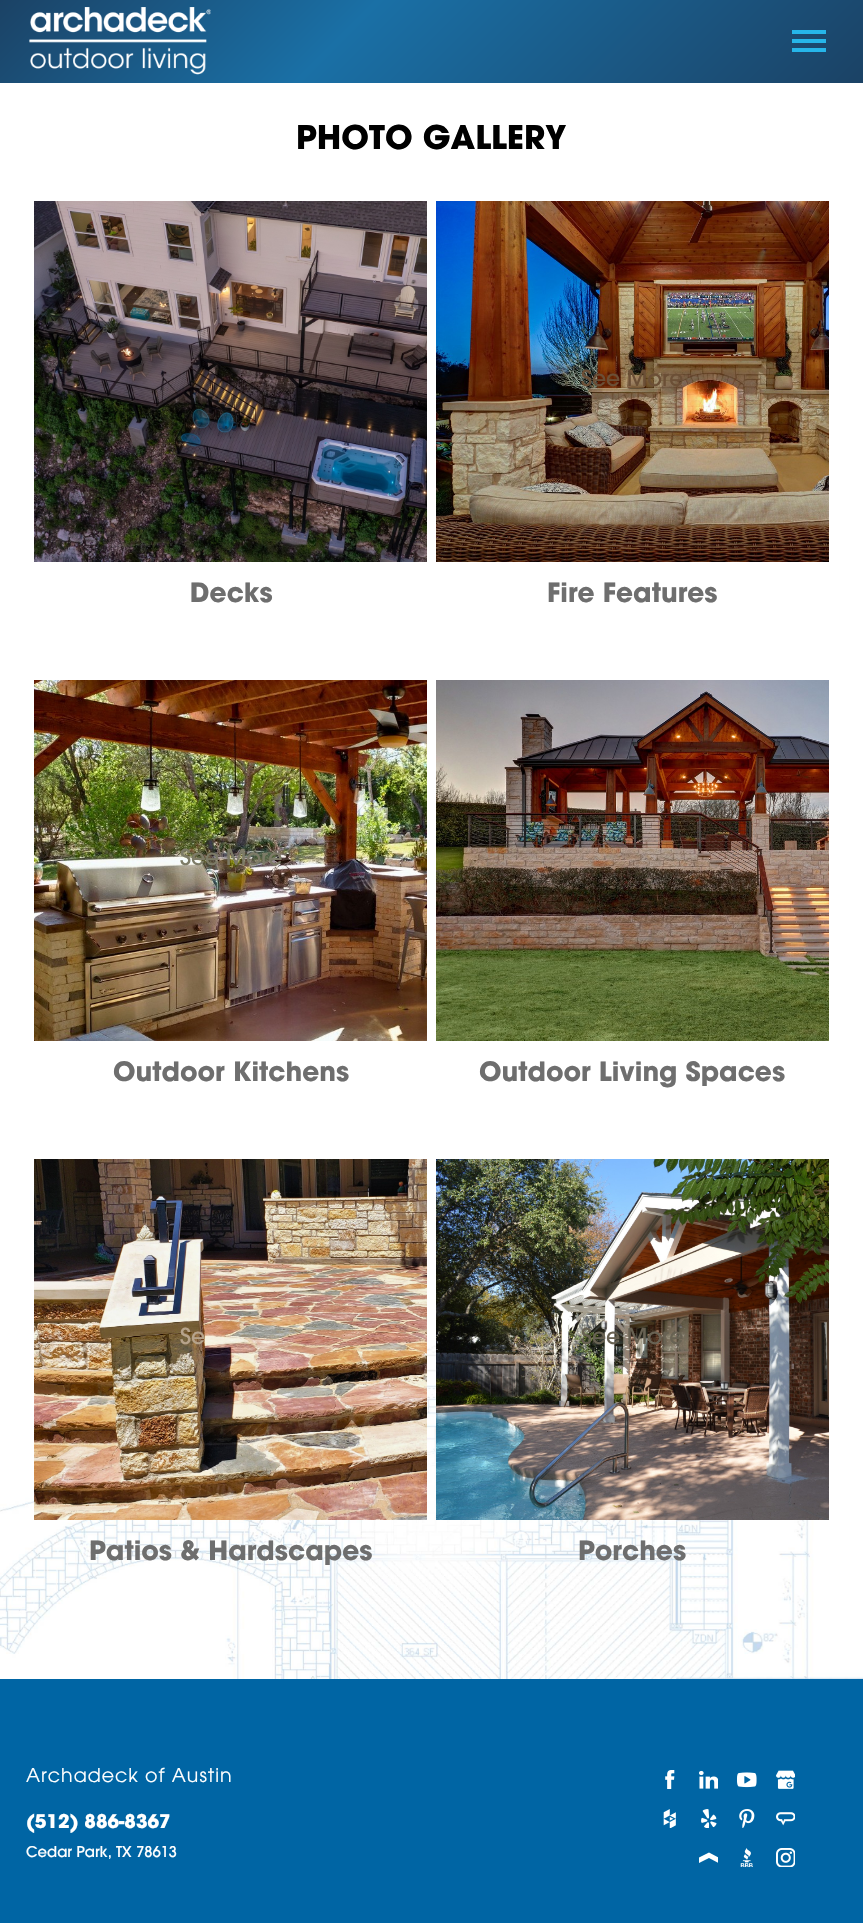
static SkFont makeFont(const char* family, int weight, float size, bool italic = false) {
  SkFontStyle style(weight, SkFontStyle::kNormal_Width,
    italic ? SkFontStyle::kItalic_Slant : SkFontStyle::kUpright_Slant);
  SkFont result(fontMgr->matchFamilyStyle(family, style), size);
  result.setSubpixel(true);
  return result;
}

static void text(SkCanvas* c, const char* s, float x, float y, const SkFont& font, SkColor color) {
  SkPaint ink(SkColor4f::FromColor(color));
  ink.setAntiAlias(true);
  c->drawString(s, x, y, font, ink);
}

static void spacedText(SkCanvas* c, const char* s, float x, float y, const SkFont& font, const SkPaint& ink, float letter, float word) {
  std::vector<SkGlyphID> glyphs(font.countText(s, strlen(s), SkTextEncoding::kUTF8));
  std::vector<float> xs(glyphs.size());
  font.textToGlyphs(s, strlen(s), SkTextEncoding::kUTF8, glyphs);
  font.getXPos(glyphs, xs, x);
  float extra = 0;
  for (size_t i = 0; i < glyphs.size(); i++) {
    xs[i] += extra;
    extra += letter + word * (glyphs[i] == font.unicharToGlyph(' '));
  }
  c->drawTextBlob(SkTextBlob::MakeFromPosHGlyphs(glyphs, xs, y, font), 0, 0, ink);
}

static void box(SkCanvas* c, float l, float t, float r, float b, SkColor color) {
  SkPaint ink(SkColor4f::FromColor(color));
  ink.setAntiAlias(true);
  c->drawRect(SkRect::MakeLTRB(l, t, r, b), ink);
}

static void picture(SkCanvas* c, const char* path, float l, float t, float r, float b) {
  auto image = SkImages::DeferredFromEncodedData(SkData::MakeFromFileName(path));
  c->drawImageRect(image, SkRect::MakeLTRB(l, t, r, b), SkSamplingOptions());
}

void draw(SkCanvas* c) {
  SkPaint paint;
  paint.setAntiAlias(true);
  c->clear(0xffffffff);
  {
    const SkColor colors[] = {0xff1b4265, 0xff1a70a6, 0xff1b4265};
    const float stops[] = {0, 0.4f, 1};
    const SkPoint ends[] = {{195, -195}, {668, 278}};
    paint.setShader(SkGradientShader::MakeLinear(ends, colors, stops, 3, SkTileMode::kClamp));
    paint.setAlpha(255);
  }
  c->drawRect(SkRect::MakeLTRB(0, 0, 863, 83), paint);
  picture(c, "img_01.png", 29, 7, 211, 75);
  box(c, 792, 30, 826, 34, 0xff26b6ea);
  box(c, 792, 39, 826, 43, 0xff26b6ea);
  box(c, 792, 48, 826, 52, 0xff26b6ea);
  picture(c, "img_02.png", 0, 1345, 863, 1679);
  SkFont face1 = makeFont("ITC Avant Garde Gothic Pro", 700, 32.5f);
  text(c, "PHOTO GALLERY", 296, 149, face1, 0xff000000);
  picture(c, "img_03.png", 34, 201, 427, 562);
  SkFont face2 = makeFont("ITC Avant Garde Gothic Pro", 700, 26.4f);
  text(c, "Decks", 190, 602, face2, 0xff6e6e6e);
  picture(c, "img_04.png", 436, 201, 829, 562);
  SkFont face3 = makeFont("ITC Avant Garde Gothic Pro", 500, 22);
  text(c, "See More", 581, 386, face3, 0xff6b4f36);
  text(c, "Fire Features", 547, 602, face2, 0xff6e6e6e);
  picture(c, "img_05.png", 34, 680, 427, 1041);
  text(c, "See More", 180, 865, face3, 0xff7d7b67);
  text(c, "Outdoor Kitchens", 113, 1081, face2, 0xff6e6e6e);
  picture(c, "img_06.png", 436, 680, 829, 1041);
  text(c, "Outdoor Living Spaces", 479, 1081, face2, 0xff6e6e6e);
  picture(c, "img_07.png", 34, 1159, 427, 1520);
  text(c, "Se", 180, 1344, face3, 0xffb6a38b);
  text(c, "Patios & Hardscapes", 89, 1560, face2, 0xff6e6e6e);
  picture(c, "img_08.png", 436, 1159, 829, 1520);
  text(c, "See More", 581, 1344, face3, 0xff686253);
  text(c, "Porches", 578, 1560, face2, 0xff6e6e6e);
  box(c, 0, 1679, 863, 1923, 0xff0065a4);
  SkFont face4 = makeFont("ITC Avant Garde Gothic Pro", 300, 19);
  paint.setShader(nullptr);
  paint.setColor(0xffffffff);
  spacedText(c, "Archadeck of Austin", 26, 1782, face4, paint, 1, 0);
  SkFont face5 = makeFont("ITC Avant Garde Gothic Pro", 700, 18.75f);
  text(c, "(512) 886-8367", 26, 1828, face5, 0xffffffff);
  SkFont face6 = makeFont("ITC Avant Garde Gothic Pro", 500, 14.75f);
  text(c, "Cedar Park, TX 78613", 26, 1857, face6, 0xffffffff);
  picture(c, "img_09.png", 665, 1770, 675, 1789);
  picture(c, "img_10.png", 699, 1770, 718, 1789);
  picture(c, "img_11.png", 737, 1772, 757, 1788);
  picture(c, "img_12.png", 776, 1770, 795, 1789);
  picture(c, "img_13.png", 663, 1809, 676, 1828);
  picture(c, "img_14.png", 701, 1809, 717, 1828);
  picture(c, "img_15.png", 739, 1809, 755, 1828);
  picture(c, "img_16.png", 776, 1812, 795, 1826);
  c->save();
  c->clipRect(SkRect::MakeLTRB(699, 1848, 718, 1867));
  c->drawPath(SkPathBuilder().moveTo(718.5f, 1863).lineTo(709, 1858).lineTo(699, 1863).lineTo(699, 1857.5f).lineTo(709, 1852.5f).lineTo(718.5f, 1857.5f).close().detach(), paint);
  c->restore();
  picture(c, "img_17.png", 740, 1848, 753, 1867);
  picture(c, "img_18.png", 776, 1848, 795, 1867);
}
